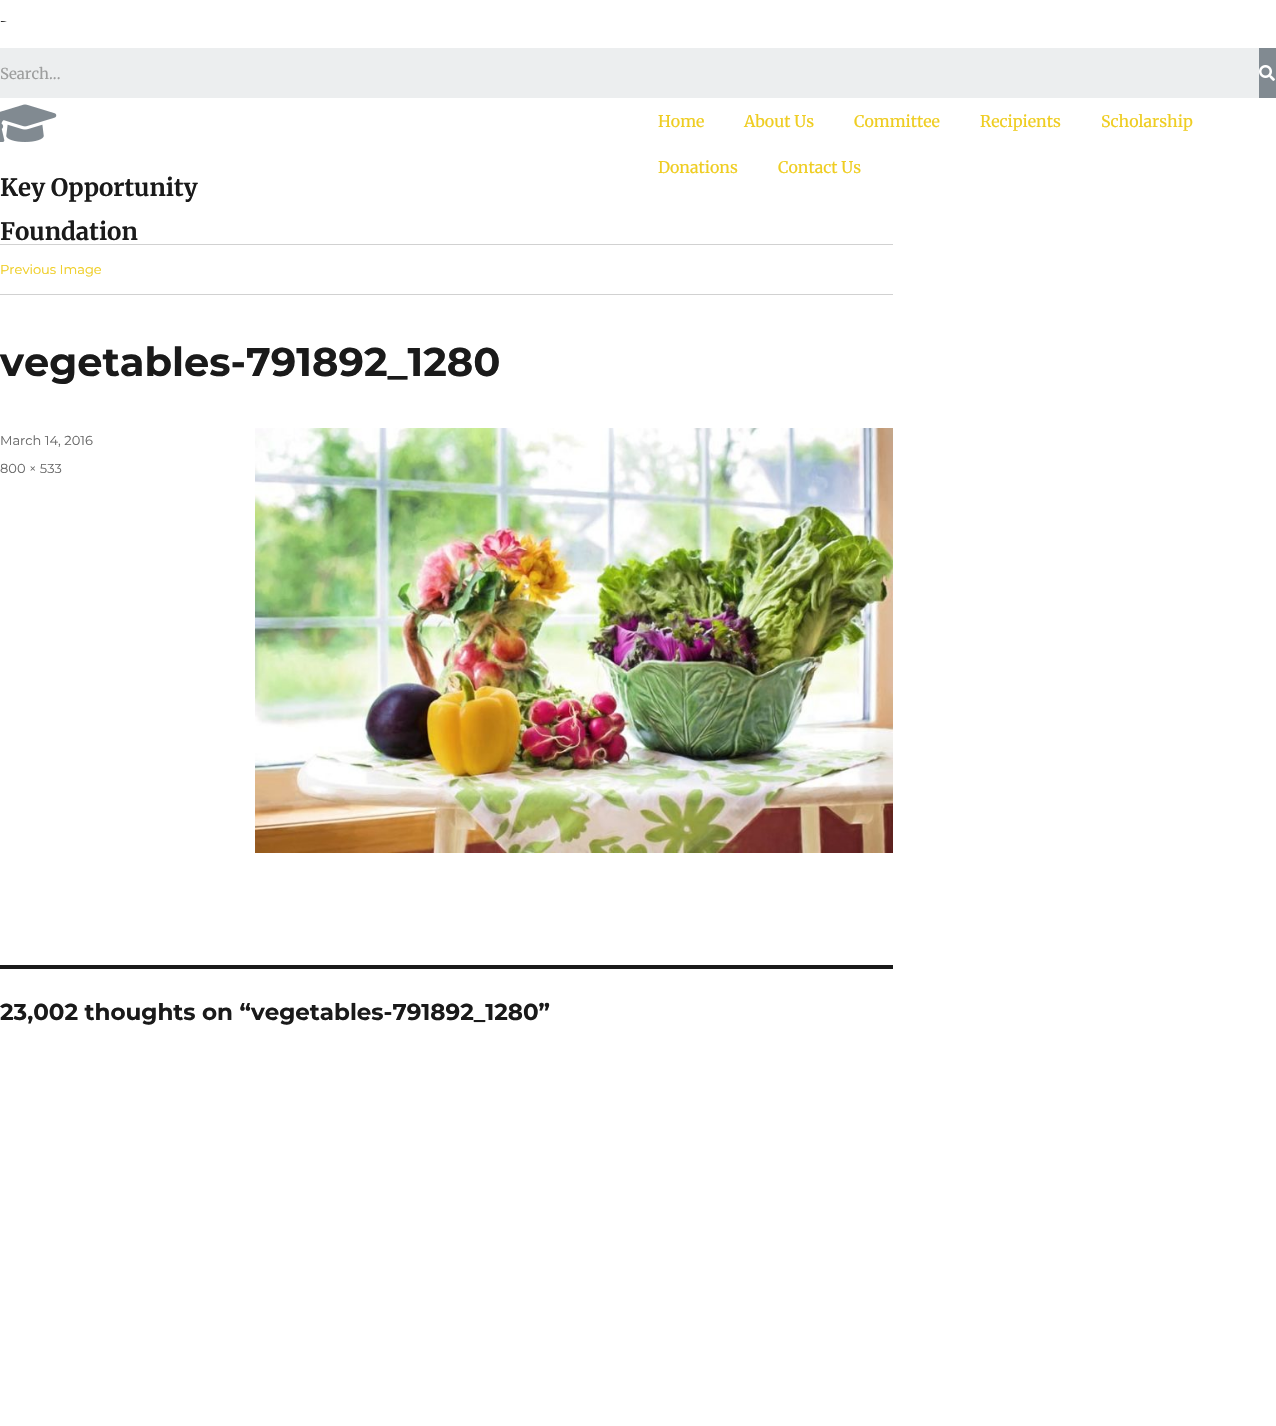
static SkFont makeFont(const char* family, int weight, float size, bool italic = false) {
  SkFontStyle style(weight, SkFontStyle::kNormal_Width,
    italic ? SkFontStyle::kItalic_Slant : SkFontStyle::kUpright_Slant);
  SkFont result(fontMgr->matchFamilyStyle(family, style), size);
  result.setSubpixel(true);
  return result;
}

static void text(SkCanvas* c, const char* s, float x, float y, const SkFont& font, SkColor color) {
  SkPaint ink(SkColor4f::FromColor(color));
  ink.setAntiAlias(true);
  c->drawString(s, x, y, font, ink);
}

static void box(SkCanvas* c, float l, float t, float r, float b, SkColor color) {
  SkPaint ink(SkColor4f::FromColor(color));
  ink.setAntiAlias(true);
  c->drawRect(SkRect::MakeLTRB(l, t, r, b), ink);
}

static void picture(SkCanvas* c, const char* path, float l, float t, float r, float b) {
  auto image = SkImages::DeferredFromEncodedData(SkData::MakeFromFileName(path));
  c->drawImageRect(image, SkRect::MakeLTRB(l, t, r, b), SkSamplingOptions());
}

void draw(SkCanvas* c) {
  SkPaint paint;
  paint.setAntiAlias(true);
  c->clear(0xffffffff);
  picture(c, "img_01.png", 0, 21, 7, 22);
  box(c, 0, 48, 1259, 98, 0xffeceeef);
  SkFont face1 = makeFont("Merriweather", 400, 15);
  text(c, "Search...", 0, 79, face1, 0xff9d9e9e);
  box(c, 1259, 48, 1276, 98, 0xff818a91);
  picture(c, "img_02.png", 1259, 65, 1275, 81);
  SkFont face2 = makeFont("Merriweather", 400, 16);
  text(c, "Home", 658, 127, face2, 0xffefcd21);
  text(c, "About Us", 744, 127, face2, 0xffefcd21);
  text(c, "Committee", 854, 127, face2, 0xffefcd21);
  text(c, "Recipients", 980, 127, face2, 0xffefcd21);
  text(c, "Scholarship", 1101, 127, face2, 0xffefcd21);
  text(c, "Donations", 658, 173, face2, 0xffefcd21);
  text(c, "Contact Us", 778, 173, face2, 0xffefcd21);
  picture(c, "img_03.png", 0, 104, 57, 142);
  SkFont face3 = makeFont("Merriweather", 700, 24);
  text(c, "Key Opportunity", 0, 196, face3, 0xff1a1a1a);
  text(c, "Foundation", 0, 240, face3, 0xff1a1a1a);
  box(c, 0, 244, 893, 245, 0xffd1d1d1);
  box(c, 0, 294, 893, 295, 0xffd1d1d1);
  SkFont face4 = makeFont("Montserrat", 400, 13);
  text(c, "Previous Image", 0, 274, face4, 0xffefcd21);
  SkFont face5 = makeFont("Montserrat", 700, 40);
  text(c, "vegetables-791892_1280", 0, 376, face5, 0xff1a1a1a);
  text(c, "March 14, 2016", 0, 445, face4, 0xff686868);
  text(c, "800 × 533", 0, 473, face4, 0xff686868);
  picture(c, "img_04.png", 255, 428, 893, 853);
  box(c, 0, 965, 893, 969, 0xff1a1a1a);
  SkFont face6 = makeFont("Montserrat", 700, 23);
  text(c, "23,002 thoughts on “vegetables-791892_1280”", 0, 1020, face6, 0xff1a1a1a);
}
